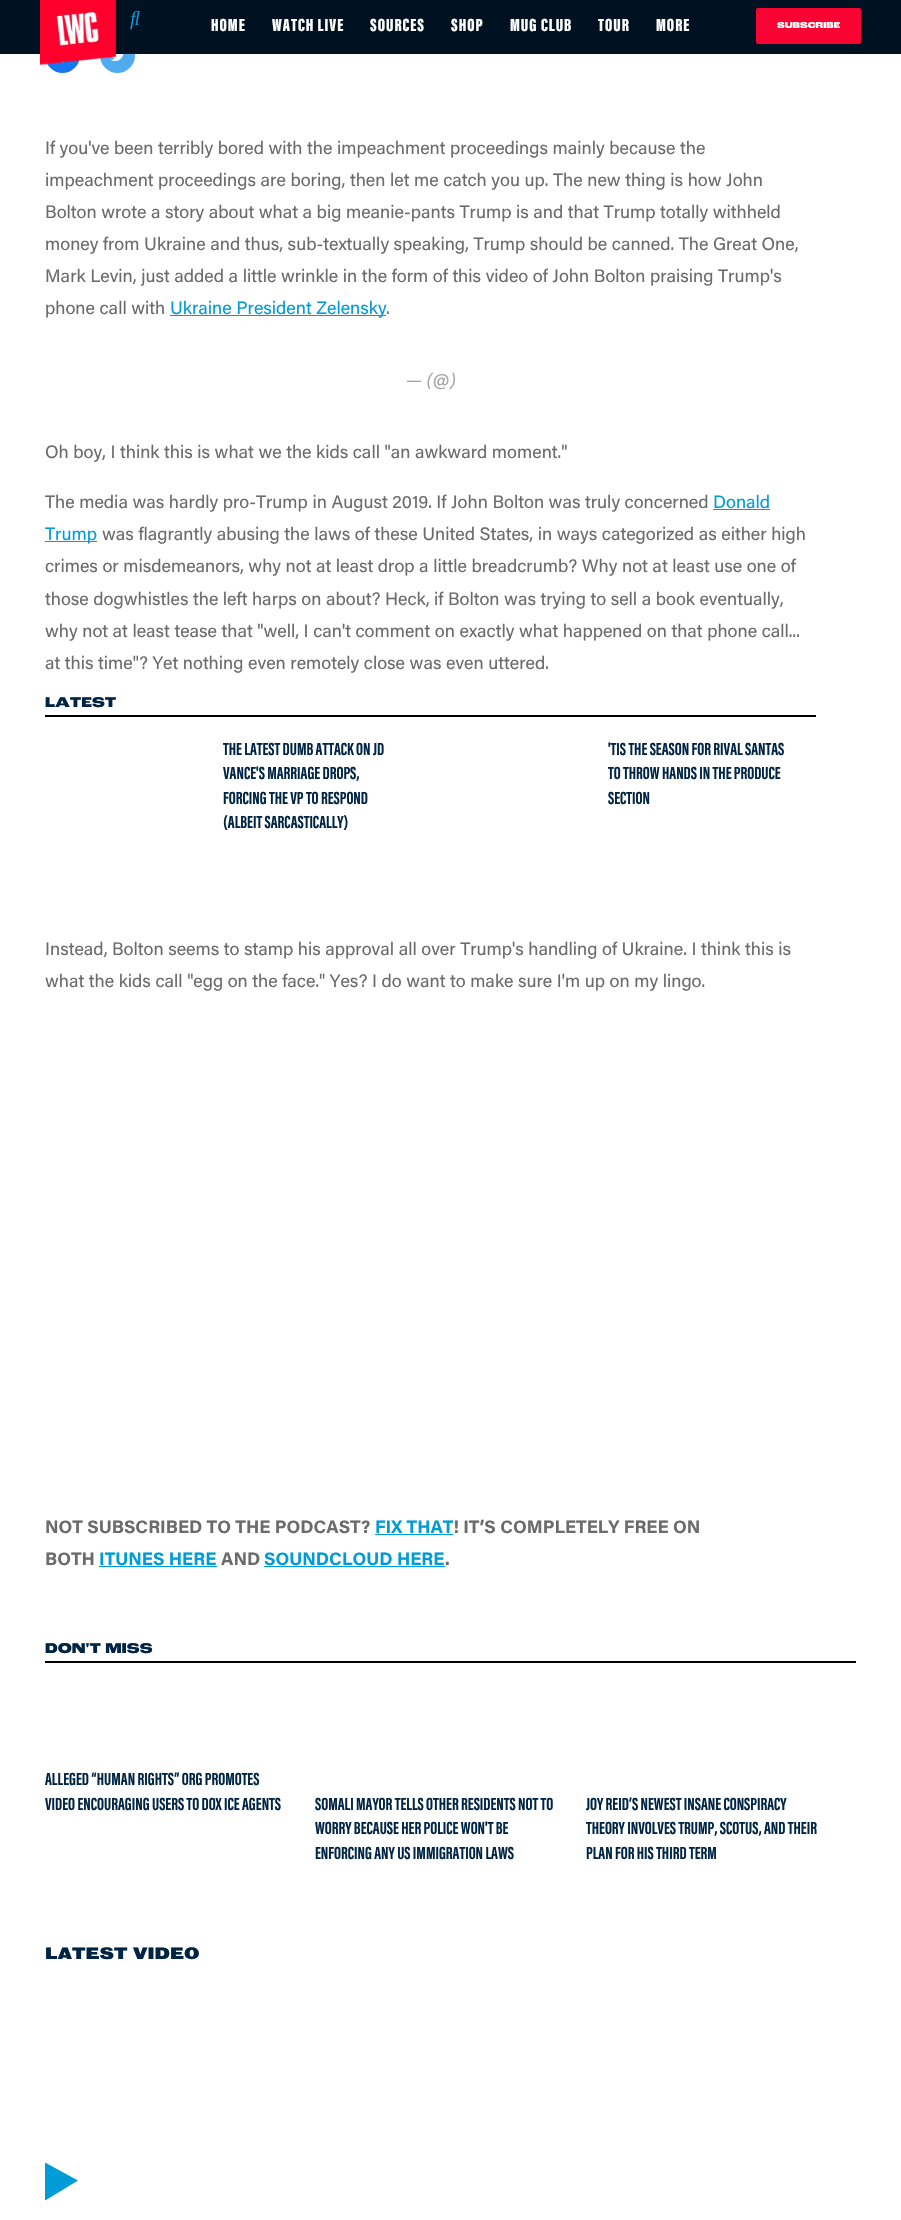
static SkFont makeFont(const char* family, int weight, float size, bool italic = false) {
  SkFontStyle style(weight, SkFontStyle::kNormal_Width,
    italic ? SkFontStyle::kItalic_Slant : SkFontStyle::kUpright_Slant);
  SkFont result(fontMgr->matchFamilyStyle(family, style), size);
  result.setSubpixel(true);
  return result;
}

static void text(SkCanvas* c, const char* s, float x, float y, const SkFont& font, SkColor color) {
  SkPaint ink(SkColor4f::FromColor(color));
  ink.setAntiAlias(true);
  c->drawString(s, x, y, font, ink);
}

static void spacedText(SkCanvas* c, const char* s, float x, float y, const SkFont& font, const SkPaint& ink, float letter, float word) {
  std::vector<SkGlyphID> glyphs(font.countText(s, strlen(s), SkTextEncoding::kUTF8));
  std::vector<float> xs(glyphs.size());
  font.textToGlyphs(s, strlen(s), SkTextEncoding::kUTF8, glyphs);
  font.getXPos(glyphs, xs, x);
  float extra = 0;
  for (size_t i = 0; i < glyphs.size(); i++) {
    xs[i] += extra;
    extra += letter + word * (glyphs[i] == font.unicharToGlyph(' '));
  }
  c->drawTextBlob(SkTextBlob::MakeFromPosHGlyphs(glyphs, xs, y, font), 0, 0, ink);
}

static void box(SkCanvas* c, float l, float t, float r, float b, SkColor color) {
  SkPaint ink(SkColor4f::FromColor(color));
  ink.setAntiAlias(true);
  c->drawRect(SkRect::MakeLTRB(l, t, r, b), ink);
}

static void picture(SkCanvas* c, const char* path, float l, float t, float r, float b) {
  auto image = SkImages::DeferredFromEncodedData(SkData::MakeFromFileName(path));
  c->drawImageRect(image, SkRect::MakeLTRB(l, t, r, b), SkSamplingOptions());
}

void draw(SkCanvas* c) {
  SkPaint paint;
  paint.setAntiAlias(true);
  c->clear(0xffffffff);
  paint.setColor(0xff1777f2);
  c->drawCircle(62.5f, 55.5f, 17.5f, paint);
  paint.setColor(0xff50abf1);
  c->drawCircle(117.5f, 55.5f, 17.5f, paint);
  box(c, 0, 0, 901, 54, 0xff001222);
  picture(c, "img_03.png", 61, 61, 65, 63);
  picture(c, "img_04.png", 110, 54, 124, 61);
  picture(c, "img_01.png", 40, 0, 116, 65);
  picture(c, "img_02.png", 130, 10, 140, 30);
  SkFont face1 = makeFont("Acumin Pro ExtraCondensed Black", 900, 18);
  paint.setColor(0xffffffff);
  spacedText(c, "HOME", 211, 31, face1, paint, 1, 0);
  spacedText(c, "WATCH LIVE", 272, 31, face1, paint, 1, 0);
  spacedText(c, "SOURCES", 370, 31, face1, paint, 1, 0);
  spacedText(c, "SHOP", 451, 31, face1, paint, 1, 0);
  spacedText(c, "MUG CLUB", 510, 31, face1, paint, 1, 0);
  spacedText(c, "TOUR", 598, 31, face1, paint, 1, 0);
  spacedText(c, "MORE", 656, 31, face1, paint, 1, 0);
  paint.setColor(0xfff90332);
  c->drawRoundRect(SkRect::MakeLTRB(757, 9, 860, 43), 1, 1, paint);
  paint.setStyle(SkPaint::kStroke_Style);
  paint.setStrokeWidth(2);
  c->drawRoundRect(SkRect::MakeLTRB(757, 9, 860, 43), 1, 1, paint);
  SkFont face2 = makeFont("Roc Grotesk", 800, 9);
  text(c, "SUBSCRIBE", 777, 28, face2, 0xffffffff);
  SkFont face3 = makeFont("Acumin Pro", 400, 18);
  text(c, "If you've been terribly bored with the impeachment proceedings mainly because the", 45, 154, face3, 0xff6b6b6b);
  text(c, "impeachment proceedings are boring, then let me catch you up. The new thing is how John", 45, 186, face3, 0xff6b6b6b);
  text(c, "Bolton wrote a story about what a big meanie-pants Trump is and that Trump totally withheld", 45, 218, face3, 0xff6b6b6b);
  text(c, "money from Ukraine and thus, sub-textually speaking, Trump should be canned. The Great One,", 45, 250, face3, 0xff6b6b6b);
  text(c, "Mark Levin, just added a little wrinkle in the form of this video of John Bolton praising Trump's", 45, 282, face3, 0xff6b6b6b);
  text(c, "phone call with", 45, 314, face3, 0xff6b6b6b);
  box(c, 170, 315, 386, 316, 0xff009cd7);
  text(c, "Ukraine President Zelensky", 170, 314, face3, 0xff009cd7);
  text(c, ".", 386, 314, face3, 0xff6b6b6b);
  SkFont face4 = makeFont("Acumin Pro", 400, 18, true);
  text(c, "— (@)", 406, 386, face4, 0xffa5a5a5);
  text(c, "Oh boy, I think this is what we the kids call \"an awkward moment.\"", 45, 458, face3, 0xff6b6b6b);
  text(c, "The media was hardly pro-Trump in August 2019. If John Bolton was truly concerned", 45, 508, face3, 0xff6b6b6b);
  text(c, "Donald", 713, 508, face3, 0xff009cd7);
  box(c, 713, 509, 770, 510, 0xff009cd7);
  box(c, 45, 541, 97, 542, 0xff009cd7);
  text(c, "Trump", 45, 540, face3, 0xff009cd7);
  text(c, "was flagrantly abusing the laws of these United States, in ways categorized as either high", 102, 540, face3, 0xff6b6b6b);
  text(c, "crimes or misdemeanors, why not at least drop a little breadcrumb? Why not at least use one of", 45, 572, face3, 0xff6b6b6b);
  text(c, "those dogwhistles the left harps on about? Heck, if Bolton was trying to sell a book eventually,", 45, 605, face3, 0xff6b6b6b);
  text(c, "why not at least tease that \"well, I can't comment on exactly what happened on that phone call...", 45, 637, face3, 0xff6b6b6b);
  text(c, "at this time\"? Yet nothing even remotely close was even uttered.", 45, 669, face3, 0xff6b6b6b);
  box(c, 45, 715, 816, 717, 0xff000000);
  SkFont face5 = makeFont("Roc Grotesk", 800, 15);
  text(c, "LATEST", 45, 707, face5, 0xff002544);
  SkFont face6 = makeFont("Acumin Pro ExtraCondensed", 700, 18);
  text(c, "THE LATEST DUMB ATTACK ON JD", 223, 755, face6, 0xff002544);
  text(c, "VANCE'S MARRIAGE DROPS,", 223, 779, face6, 0xff002544);
  text(c, "FORCING THE VP TO RESPOND", 223, 804, face6, 0xff002544);
  text(c, "(ALBEIT SARCASTICALLY)", 223, 828, face6, 0xff002544);
  text(c, "'TIS THE SEASON FOR RIVAL SANTAS", 608, 755, face6, 0xff002544);
  text(c, "TO THROW HANDS IN THE PRODUCE", 608, 779, face6, 0xff002544);
  text(c, "SECTION", 608, 804, face6, 0xff002544);
  text(c, "Instead, Bolton seems to stamp his approval all over Trump's handling of Ukraine. I think this is", 45, 955, face3, 0xff6b6b6b);
  text(c, "what the kids call \"egg on the face.\" Yes? I do want to make sure I'm up on my lingo.", 45, 987, face3, 0xff6b6b6b);
  SkFont face7 = makeFont("Acumin Pro", 700, 18);
  text(c, "NOT SUBSCRIBED TO THE PODCAST?", 45, 1533, face7, 0xff6b6b6b);
  text(c, "FIX THAT", 375, 1533, face7, 0xff009cd7);
  box(c, 375, 1534, 453, 1535, 0xff009cd7);
  text(c, "! IT’S COMPLETELY FREE ON", 453, 1533, face7, 0xff6b6b6b);
  text(c, "BOTH", 45, 1565, face7, 0xff6b6b6b);
  text(c, "ITUNES HERE", 99, 1565, face7, 0xff009cd7);
  box(c, 99, 1566, 217, 1567, 0xff009cd7);
  text(c, "AND", 221, 1565, face7, 0xff6b6b6b);
  text(c, "SOUNDCLOUD HERE", 264, 1565, face7, 0xff009cd7);
  box(c, 264, 1566, 445, 1567, 0xff009cd7);
  text(c, ".", 445, 1565, face7, 0xff6b6b6b);
  box(c, 45, 1661, 856, 1663, 0xff000000);
  text(c, "DON'T MISS", 45, 1653, face5, 0xff002544);
  text(c, "ALLEGED “HUMAN RIGHTS” ORG PROMOTES", 45, 1785, face6, 0xff002544);
  text(c, "VIDEO ENCOURAGING USERS TO DOX ICE AGENTS", 45, 1810, face6, 0xff002544);
  text(c, "SOMALI MAYOR TELLS OTHER RESIDENTS NOT TO", 315, 1810, face6, 0xff002544);
  text(c, "WORRY BECAUSE HER POLICE WON'T BE", 315, 1834, face6, 0xff002544);
  text(c, "ENFORCING ANY US IMMIGRATION LAWS", 315, 1859, face6, 0xff002544);
  text(c, "JOY REID’S NEWEST INSANE CONSPIRACY", 586, 1810, face6, 0xff002544);
  text(c, "THEORY INVOLVES TRUMP, SCOTUS, AND THEIR", 586, 1834, face6, 0xff002544);
  text(c, "PLAN FOR HIS THIRD TERM", 586, 1859, face6, 0xff002544);
  SkFont face8 = makeFont("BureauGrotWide", 900, 15);
  text(c, "LATEST VIDEO", 45, 1959, face8, 0xff002544);
  paint.setStyle(SkPaint::kFill_Style);
  paint.setColor(0xff009cd7);
  c->drawPath(SkPathBuilder().moveTo(46, 2200).lineTo(45, 2200).lineTo(45, 2162.5f).lineTo(78, 2180.5f).close().detach(), paint);
}
